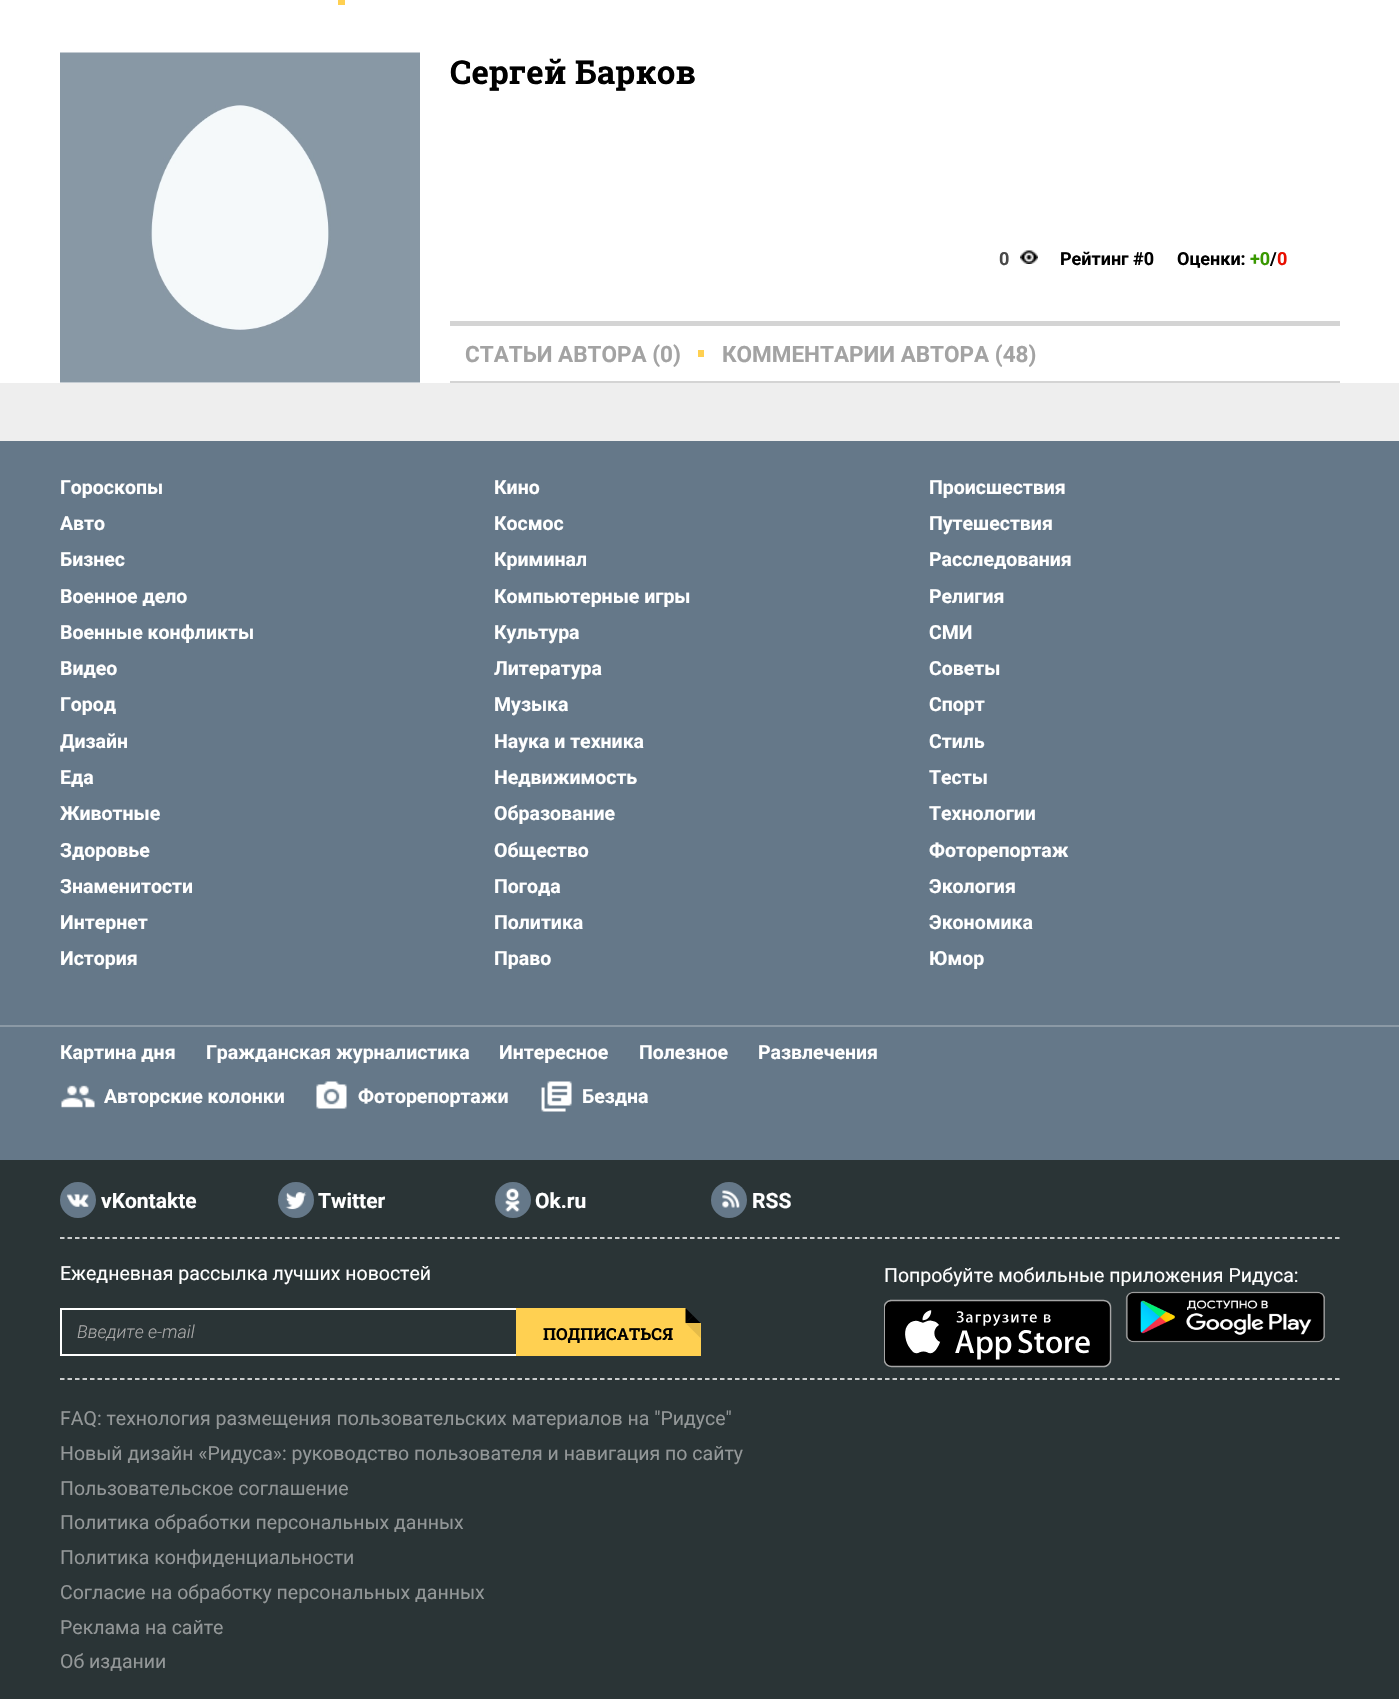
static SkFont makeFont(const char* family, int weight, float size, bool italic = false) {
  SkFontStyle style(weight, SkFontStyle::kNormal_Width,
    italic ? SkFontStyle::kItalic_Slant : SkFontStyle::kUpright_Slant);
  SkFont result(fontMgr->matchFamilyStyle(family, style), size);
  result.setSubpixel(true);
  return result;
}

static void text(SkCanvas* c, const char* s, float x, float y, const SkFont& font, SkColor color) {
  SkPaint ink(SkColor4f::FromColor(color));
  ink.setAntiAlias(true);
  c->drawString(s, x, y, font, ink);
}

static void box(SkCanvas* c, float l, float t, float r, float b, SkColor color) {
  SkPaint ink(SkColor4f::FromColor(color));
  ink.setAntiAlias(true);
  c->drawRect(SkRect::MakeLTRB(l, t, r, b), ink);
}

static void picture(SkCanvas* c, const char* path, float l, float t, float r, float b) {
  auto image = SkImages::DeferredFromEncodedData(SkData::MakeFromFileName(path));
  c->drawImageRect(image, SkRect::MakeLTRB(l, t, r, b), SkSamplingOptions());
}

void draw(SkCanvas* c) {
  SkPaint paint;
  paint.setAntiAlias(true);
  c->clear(0xffeeeeee);
  box(c, 0, 0, 1399, 383, 0xffffffff);
  box(c, 338, 0, 345, 5, 0xffffd051);
  picture(c, "img_01.png", 60, 52, 420, 383);
  SkFont face1 = makeFont("Roboto Slab", 700, 33);
  text(c, "Сергей Барков", 450, 84, face1, 0xff000000);
  SkFont face2 = makeFont("Roboto", 700, 18);
  text(c, "0", 999, 265, face2, 0xff494949);
  picture(c, "img_02.png", 1020, 250, 1038, 264);
  text(c, "Рейтинг #0", 1060, 265, face2, 0xff000000);
  text(c, "Оценки:", 1177, 265, face2, 0xff000000);
  text(c, "+0", 1250, 265, face2, 0xff399800);
  text(c, "/", 1270, 265, face2, 0xff000000);
  text(c, "0", 1277, 265, face2, 0xffe80f00);
  box(c, 450, 321, 1340, 326, 0xffd4d4d4);
  box(c, 450, 381, 1340, 383, 0xffd4d4d4);
  SkFont face3 = makeFont("Roboto", 700, 22.5f);
  text(c, "СТАТЬИ АВТОРА (0)", 465, 362, face3, 0xffa3a3a3);
  box(c, 698, 350, 704, 357, 0xffffd051);
  text(c, "КОММЕНТАРИИ АВТОРА (48)", 722, 362, face3, 0xffa3a3a3);
  box(c, 0, 441, 1399, 1160, 0xff657889);
  SkFont face4 = makeFont("Roboto", 700, 19.5f);
  text(c, "Гороскопы", 60, 494, face4, 0xffffffff);
  text(c, "Кино", 494, 494, face4, 0xffffffff);
  text(c, "Происшествия", 929, 494, face4, 0xffffffff);
  text(c, "Авто", 60, 530, face4, 0xffffffff);
  text(c, "Космос", 494, 530, face4, 0xffffffff);
  text(c, "Путешествия", 929, 530, face4, 0xffffffff);
  text(c, "Бизнес", 60, 566, face4, 0xffffffff);
  text(c, "Криминал", 494, 566, face4, 0xffffffff);
  text(c, "Расследования", 929, 566, face4, 0xffffffff);
  text(c, "Военное дело", 60, 603, face4, 0xffffffff);
  text(c, "Компьютерные игры", 494, 603, face4, 0xffffffff);
  text(c, "Религия", 929, 603, face4, 0xffffffff);
  text(c, "Военные конфликты", 60, 639, face4, 0xffffffff);
  text(c, "Культура", 494, 639, face4, 0xffffffff);
  text(c, "СМИ", 929, 639, face4, 0xffffffff);
  text(c, "Видео", 60, 675, face4, 0xffffffff);
  text(c, "Литература", 494, 675, face4, 0xffffffff);
  text(c, "Советы", 929, 675, face4, 0xffffffff);
  text(c, "Город", 60, 711, face4, 0xffffffff);
  text(c, "Музыка", 494, 711, face4, 0xffffffff);
  text(c, "Спорт", 929, 711, face4, 0xffffffff);
  text(c, "Дизайн", 60, 748, face4, 0xffffffff);
  text(c, "Наука и техника", 494, 748, face4, 0xffffffff);
  text(c, "Стиль", 929, 748, face4, 0xffffffff);
  text(c, "Еда", 60, 784, face4, 0xffffffff);
  text(c, "Недвижимость", 494, 784, face4, 0xffffffff);
  text(c, "Тесты", 929, 784, face4, 0xffffffff);
  text(c, "Животные", 60, 820, face4, 0xffffffff);
  text(c, "Образование", 494, 820, face4, 0xffffffff);
  text(c, "Технологии", 929, 820, face4, 0xffffffff);
  text(c, "Здоровье", 60, 857, face4, 0xffffffff);
  text(c, "Общество", 494, 857, face4, 0xffffffff);
  text(c, "Фоторепортаж", 929, 857, face4, 0xffffffff);
  text(c, "Знаменитости", 60, 893, face4, 0xffffffff);
  text(c, "Погода", 494, 893, face4, 0xffffffff);
  text(c, "Экология", 929, 893, face4, 0xffffffff);
  text(c, "Интернет", 60, 929, face4, 0xffffffff);
  text(c, "Политика", 494, 929, face4, 0xffffffff);
  text(c, "Экономика", 929, 929, face4, 0xffffffff);
  text(c, "История", 60, 965, face4, 0xffffffff);
  text(c, "Право", 494, 965, face4, 0xffffffff);
  text(c, "Юмор", 929, 965, face4, 0xffffffff);
  box(c, 0, 1025, 1399, 1027, 0xff8b99a5);
  text(c, "Картина дня", 60, 1059, face4, 0xffffffff);
  text(c, "Гражданская журналистика", 206, 1059, face4, 0xffffffff);
  text(c, "Интересное", 499, 1059, face4, 0xffffffff);
  text(c, "Полезное", 639, 1059, face4, 0xffffffff);
  text(c, "Развлечения", 758, 1059, face4, 0xffffffff);
  picture(c, "img_03.png", 61, 1085, 95, 1108);
  text(c, "Авторские колонки", 104, 1103, face4, 0xffffffff);
  picture(c, "img_04.png", 316, 1081, 347, 1109);
  text(c, "Фоторепортажи", 358, 1103, face4, 0xffffffff);
  picture(c, "img_05.png", 541, 1081, 572, 1112);
  text(c, "Бездна", 582, 1103, face4, 0xffffffff);
  box(c, 0, 1160, 1399, 1699, 0xff2a3436);
  paint.setColor(0xff657889);
  c->drawCircle(78, 1200, 18, paint);
  picture(c, "img_06.png", 66, 1194, 89, 1207);
  SkFont face5 = makeFont("Roboto", 700, 21);
  text(c, "vKontakte", 101, 1208, face5, 0xffffffff);
  c->drawCircle(296, 1200, 18, paint);
  picture(c, "img_07.png", 285, 1192, 307, 1210);
  text(c, "Twitter", 318, 1208, face5, 0xffffffff);
  c->drawCircle(513, 1200, 18, paint);
  picture(c, "img_08.png", 505, 1188, 520, 1212);
  text(c, "Ok.ru", 535, 1208, face5, 0xffffffff);
  c->drawCircle(729, 1200, 18, paint);
  picture(c, "img_09.png", 722, 1190, 740, 1208);
  text(c, "RSS", 752, 1208, face5, 0xffffffff);
  paint.setStyle(SkPaint::kStroke_Style);
  paint.setStrokeWidth(1.5f);
  paint.setColor(0xffffffff);
  paint.setPathEffect(SkDashPathEffect::Make({{4.5f, 3}}, 0));
  c->drawPath(SkPathBuilder().moveTo(60, 1238).lineTo(1339.5f, 1238).detach(), paint);
  paint.setPathEffect(nullptr);
  SkFont face6 = makeFont("Roboto", 400, 19.5f);
  text(c, "Ежедневная рассылка лучших новостей", 60, 1280, face6, 0xffffffff);
  paint.setStrokeWidth(2);
  c->drawRect(SkRect::MakeLTRB(61, 1309, 635, 1355), paint);
  SkFont face7 = makeFont("Roboto", 300, 18, true);
  text(c, "Введите e-mail", 77, 1338, face7, 0xffa9a9a9);
  box(c, 516, 1308, 686, 1356, 0xffffd051);
  SkFont face8 = makeFont("Roboto Slab", 700, 16.5f);
  text(c, "ПОДПИСАТЬСЯ", 543, 1340, face8, 0xff000000);
  box(c, 686, 1323, 701, 1356, 0xffffd051);
  paint.setStyle(SkPaint::kFill_Style);
  paint.setColor(0xff000000);
  c->drawPath(SkPathBuilder().moveTo(700.5f, 1323).lineTo(685.5f, 1323).lineTo(693, 1315.5f).close().detach(), paint);
  c->drawPath(SkPathBuilder().moveTo(685.5f, 1323).lineTo(685.5f, 1308).lineTo(693, 1315.5f).close().detach(), paint);
  paint.setColor(0xffe6bb49);
  c->drawPath(SkPathBuilder().moveTo(685.5f, 1323).lineTo(700.5f, 1323).lineTo(693, 1330.5f).close().detach(), paint);
  paint.setColor(0x1a000000);
  c->drawPath(SkPathBuilder().moveTo(700.5f, 1323).lineTo(700.5f, 1338).lineTo(693, 1330.5f).close().detach(), paint);
  text(c, "Попробуйте мобильные приложения Ридуса:", 884, 1282, face6, 0xffffffff);
  picture(c, "img_10.png", 884, 1299, 1112, 1368);
  picture(c, "img_11.png", 1125, 1291, 1325, 1343);
  paint.setStyle(SkPaint::kStroke_Style);
  paint.setStrokeWidth(1.5f);
  paint.setColor(0xffffffff);
  paint.setPathEffect(SkDashPathEffect::Make({{4.5f, 3}}, 0));
  c->drawPath(SkPathBuilder().moveTo(60, 1379).lineTo(1339.5f, 1379).detach(), paint);
  paint.setPathEffect(nullptr);
  text(c, "FAQ: технология размещения пользовательских материалов на \"Ридусе\"", 60, 1425, face6, 0xff939798);
  text(c, "Новый дизайн «Ридуса»: руководство пользователя и навигация по сайту", 60, 1460, face6, 0xff939798);
  text(c, "Пользовательское соглашение", 60, 1495, face6, 0xff939798);
  text(c, "Политика обработки персональных данных", 60, 1529, face6, 0xff939798);
  text(c, "Политика конфиденциальности", 60, 1564, face6, 0xff939798);
  text(c, "Согласие на обработку персональных данных", 60, 1599, face6, 0xff939798);
  text(c, "Реклама на сайте", 60, 1634, face6, 0xff939798);
  text(c, "Об издании", 60, 1668, face6, 0xff939798);
}
